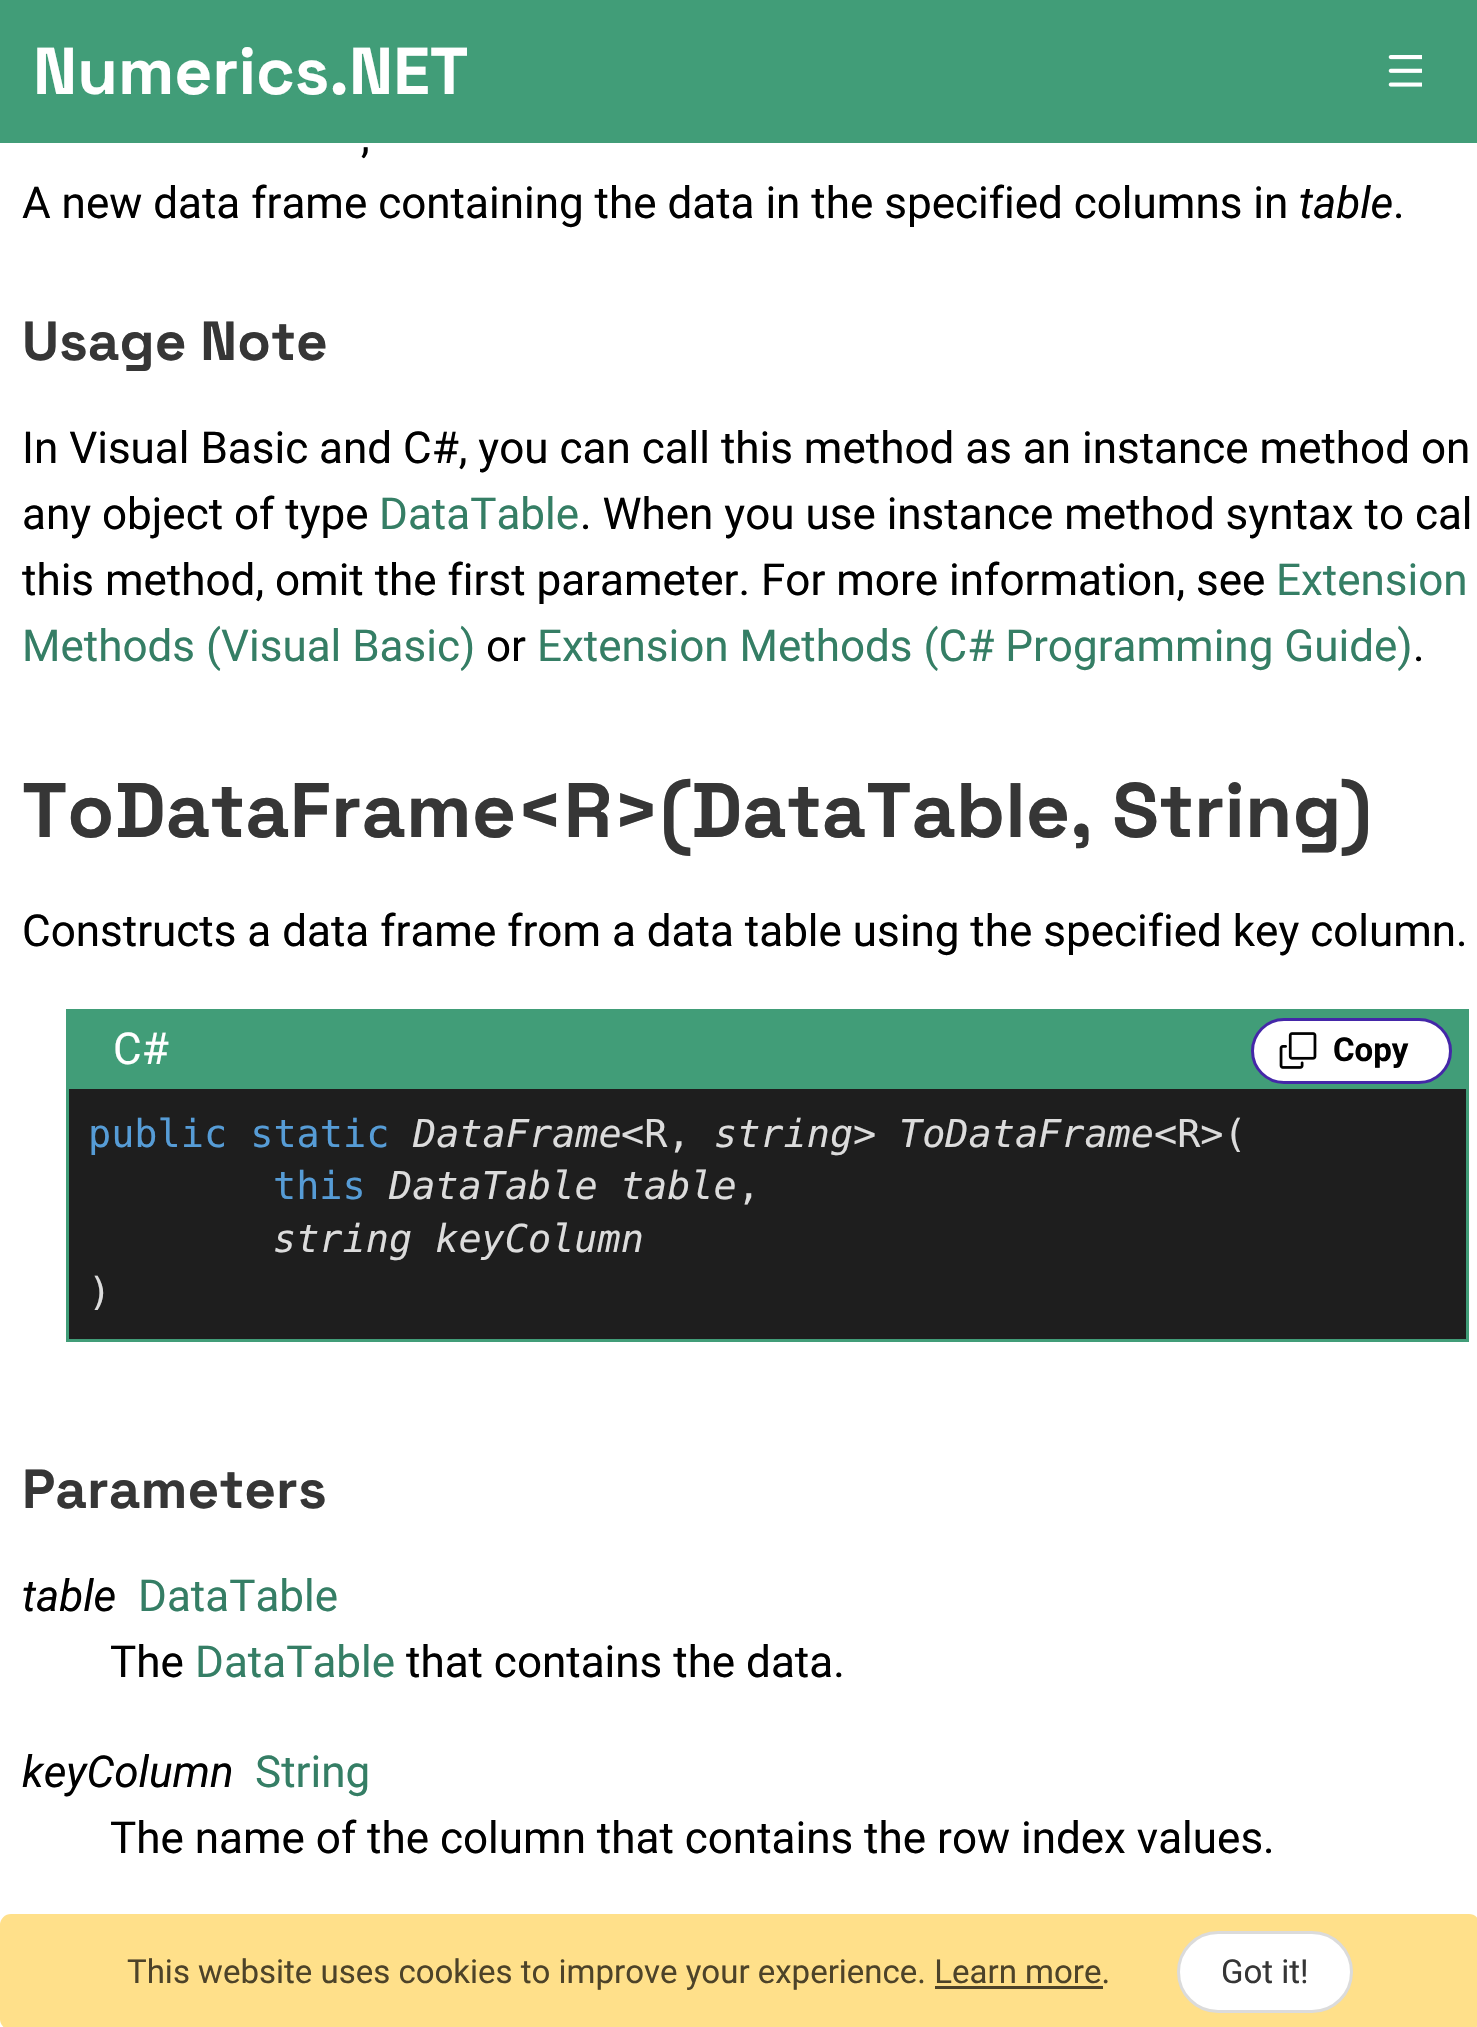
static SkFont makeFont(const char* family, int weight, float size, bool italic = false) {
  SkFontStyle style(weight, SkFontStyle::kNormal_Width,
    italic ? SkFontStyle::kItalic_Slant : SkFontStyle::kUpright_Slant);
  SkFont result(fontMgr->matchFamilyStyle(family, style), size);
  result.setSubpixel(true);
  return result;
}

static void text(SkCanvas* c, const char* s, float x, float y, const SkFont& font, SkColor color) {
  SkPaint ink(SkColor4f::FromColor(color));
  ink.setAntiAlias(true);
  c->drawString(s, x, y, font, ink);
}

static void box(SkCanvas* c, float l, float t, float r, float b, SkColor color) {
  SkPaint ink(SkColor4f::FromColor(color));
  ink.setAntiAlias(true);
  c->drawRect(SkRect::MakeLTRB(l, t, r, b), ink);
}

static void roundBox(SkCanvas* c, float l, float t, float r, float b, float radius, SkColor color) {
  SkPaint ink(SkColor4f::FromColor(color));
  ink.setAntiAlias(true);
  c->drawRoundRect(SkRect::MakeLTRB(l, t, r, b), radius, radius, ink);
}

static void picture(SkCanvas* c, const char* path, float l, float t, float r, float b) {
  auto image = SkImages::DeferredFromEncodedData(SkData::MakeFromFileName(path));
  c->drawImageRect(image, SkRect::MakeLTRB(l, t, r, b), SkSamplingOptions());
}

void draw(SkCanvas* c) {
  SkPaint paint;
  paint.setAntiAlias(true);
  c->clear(0xffffffff);
  box(c, 0, 0, 1477, 143, 0xff419d78);
  SkFont face1 = makeFont("Space Grotesk", 300, 66);
  text(c, "Numerics.NET", 33, 94, face1, 0xffffffff);
  picture(c, "img_01.png", 1388, 55, 1422, 87);
  SkFont face2 = makeFont("Roboto", 400, 44);
  text(c, ",", 361, 152, face2, 0xff000000);
  text(c, "A new data frame containing the data in the specified columns in", 22, 218, face2, 0xff000000);
  SkFont face3 = makeFont("Roboto", 400, 44, true);
  text(c, "table", 1299, 218, face3, 0xff000000);
  text(c, ".", 1393, 218, face2, 0xff000000);
  SkFont face4 = makeFont("Space Grotesk", 300, 55);
  text(c, "Usage Note", 22, 360, face4, 0xff363636);
  text(c, "In Visual Basic and C#, you can call this method as an instance method on", 22, 463, face2, 0xff000000);
  text(c, "any object of type", 22, 529, face2, 0xff000000);
  text(c, "DataTable", 379, 529, face2, 0xff357e65);
  text(c, ". When you use instance method syntax to cal", 580, 529, face2, 0xff000000);
  text(c, "this method, omit the first parameter. For more information, see", 22, 595, face2, 0xff000000);
  text(c, "Extension", 1276, 595, face2, 0xff357e65);
  text(c, "Methods (Visual Basic)", 22, 661, face2, 0xff357e65);
  text(c, "or", 486, 661, face2, 0xff000000);
  text(c, "Extension Methods (C# Programming Guide)", 537, 661, face2, 0xff357e65);
  text(c, ".", 1413, 661, face2, 0xff000000);
  SkFont face5 = makeFont("Space Grotesk", 300, 77);
  text(c, "ToDataFrame<R>(DataTable, String)", 22, 837, face5, 0xff363636);
  text(c, "Constructs a data frame from a data table using the specified key column.", 22, 946, face2, 0xff000000);
  box(c, 66, 1009, 1469, 1089, 0xff419d78);
  text(c, "C#", 113, 1064, face2, 0xffffffff);
  paint.setColor(0xffffffff);
  c->drawRoundRect(SkRect::MakeLTRB(1252.5f, 1019.5f, 1450.5f, 1082.5f), 31.5f, 31.5f, paint);
  paint.setStyle(SkPaint::kStroke_Style);
  paint.setStrokeWidth(3);
  paint.setColor(0xff4427a8);
  c->drawRoundRect(SkRect::MakeLTRB(1252.5f, 1019.5f, 1450.5f, 1082.5f), 31.5f, 31.5f, paint);
  picture(c, "img_02.png", 1279, 1032, 1317, 1069);
  SkFont face6 = makeFont("Roboto", 700, 33);
  text(c, "Copy", 1333, 1061, face6, 0xff000000);
  box(c, 69, 1089, 1466, 1339, 0xff1e1e1e);
  box(c, 1466, 1089, 1469, 1342, 0xff419d78);
  box(c, 66, 1339, 1469, 1342, 0xff419d78);
  box(c, 66, 1089, 69, 1342, 0xff419d78);
  SkFont face7 = makeFont("DejaVu Sans Mono", 400, 38.5f);
  text(c, "public static", 88, 1147, face7, 0xff569cd6);
  SkFont face8 = makeFont("DejaVu Sans Mono", 400, 38.5f, true);
  text(c, "DataFrame", 413, 1147, face8, 0xffdcdcdc);
  text(c, "<R,", 621, 1147, face7, 0xffdcdcdc);
  text(c, "string", 714, 1147, face8, 0xffdcdcdc);
  text(c, ">", 853, 1147, face7, 0xffdcdcdc);
  text(c, "ToDataFrame", 899, 1147, face8, 0xffdcdcdc);
  text(c, "<R>(", 1154, 1147, face7, 0xffdcdcdc);
  text(c, "this", 273, 1199, face7, 0xff569cd6);
  text(c, "DataTable table", 389, 1199, face8, 0xffdcdcdc);
  text(c, ",", 737, 1199, face7, 0xffdcdcdc);
  text(c, "string keyColumn", 273, 1252, face8, 0xffdcdcdc);
  text(c, ")", 88, 1305, face7, 0xffdcdcdc);
  text(c, "Parameters", 22, 1508, face4, 0xff363636);
  text(c, "table", 22, 1611, face3, 0xff000000);
  text(c, "DataTable", 138, 1611, face2, 0xff357e65);
  text(c, "The", 110, 1677, face2, 0xff000000);
  text(c, "DataTable", 195, 1677, face2, 0xff357e65);
  text(c, "that contains the data.", 406, 1677, face2, 0xff000000);
  text(c, "keyColumn", 22, 1787, face3, 0xff000000);
  text(c, "String", 255, 1787, face2, 0xff357e65);
  text(c, "The name of the column that contains the row index values.", 110, 1853, face2, 0xff000000);
  roundBox(c, 0, 1914, 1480, 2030, 11, 0xffffe08a);
  SkFont face9 = makeFont("Roboto", 400, 33);
  text(c, "This website uses cookies to improve your experience. Learn more.", 127, 1983, face9, 0xff4d4329);
  box(c, 935, 1986, 1103, 1989, 0xff4d4329);
  paint.setStyle(SkPaint::kFill_Style);
  paint.setColor(0xffffffff);
  c->drawRoundRect(SkRect::MakeLTRB(1178.5f, 1932.5f, 1351.5f, 2011.5f), 39.5f, 39.5f, paint);
  paint.setStyle(SkPaint::kStroke_Style);
  paint.setColor(0xffdbdbdb);
  c->drawRoundRect(SkRect::MakeLTRB(1178.5f, 1932.5f, 1351.5f, 2011.5f), 39.5f, 39.5f, paint);
  text(c, "Got it!", 1221, 1983, face9, 0xff363636);
}
